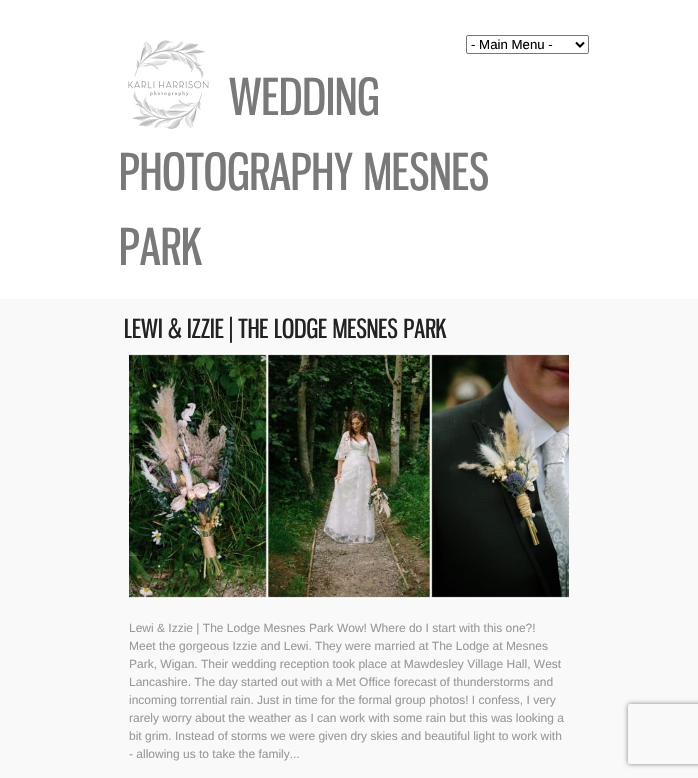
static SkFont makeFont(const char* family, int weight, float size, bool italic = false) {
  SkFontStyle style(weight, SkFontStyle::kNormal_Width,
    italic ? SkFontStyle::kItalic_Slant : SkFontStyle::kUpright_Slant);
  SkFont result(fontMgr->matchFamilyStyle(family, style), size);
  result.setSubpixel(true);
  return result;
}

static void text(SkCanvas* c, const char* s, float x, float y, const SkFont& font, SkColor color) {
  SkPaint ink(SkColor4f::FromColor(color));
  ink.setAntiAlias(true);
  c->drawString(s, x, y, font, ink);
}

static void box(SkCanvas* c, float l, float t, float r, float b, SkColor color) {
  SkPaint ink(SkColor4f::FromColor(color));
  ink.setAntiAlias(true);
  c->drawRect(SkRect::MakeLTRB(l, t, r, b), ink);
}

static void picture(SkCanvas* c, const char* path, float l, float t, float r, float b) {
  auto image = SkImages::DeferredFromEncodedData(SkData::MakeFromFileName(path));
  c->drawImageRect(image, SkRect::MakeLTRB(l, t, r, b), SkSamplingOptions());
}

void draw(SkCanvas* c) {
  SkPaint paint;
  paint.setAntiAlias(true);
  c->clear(0xffffffff);
  picture(c, "img_01.png", 128, 40, 209, 129);
  paint.setStyle(SkPaint::kStroke_Style);
  paint.setStrokeWidth(1);
  paint.setColor(0xff767676);
  c->drawRoundRect(SkRect::MakeLTRB(466.5f, 35.5f, 588.5f, 53.5f), 1.5f, 1.5f, paint);
  paint.setStrokeWidth(2);
  paint.setColor(0xff000000);
  c->drawPath(SkPathBuilder().moveTo(576, 42.5f).lineTo(580, 46.5f).lineTo(584, 42.5f).detach(), paint);
  SkFont face1 = makeFont("Liberation Sans", 400, 13.25f);
  text(c, "- Main Menu -", 471, 49, face1, 0xff000000);
  SkFont face2 = makeFont("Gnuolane", 400, 50);
  text(c, "WEDDING", 229, 115, face2, 0xff797979);
  text(c, "PHOTOGRAPHY MESNES", 119, 190, face2, 0xff797979);
  text(c, "PARK", 119, 265, face2, 0xff797979);
  box(c, 0, 299, 698, 778, 0xfff9f9f9);
  SkFont face3 = makeFont("Gnuolane", 400, 26);
  text(c, "LEWI & IZZIE | THE LODGE MESNES PARK", 124, 338, face3, 0xff222222);
  picture(c, "img_02.png", 129, 353, 569, 599);
  SkFont face4 = makeFont("Liberation Sans", 400, 12);
  text(c, "Lewi & Izzie | The Lodge Mesnes Park Wow! Where do I start with this one?!", 129, 632, face4, 0xff999999);
  text(c, "Meet the gorgeous Izzie and Lewi. They were married at The Lodge at Mesnes", 129, 650, face4, 0xff999999);
  text(c, "Park, Wigan. Their wedding reception took place at Mawdesley Village Hall, West", 129, 668, face4, 0xff999999);
  text(c, "Lancashire. The day started out with a Met Office forecast of thunderstorms and", 129, 686, face4, 0xff999999);
  text(c, "incoming torrential rain. Just in time for the formal group photos! I confess, I very", 129, 704, face4, 0xff999999);
  text(c, "rarely worry about the weather as I can work with some rain but this was looking a", 129, 722, face4, 0xff999999);
  text(c, "bit grim. Instead of storms we were given dry skies and beautiful light to work with", 129, 740, face4, 0xff999999);
  text(c, "- allowing us to take the family...", 129, 758, face4, 0xff999999);
  c->save();
  c->clipPath(SkPathBuilder(SkPathFillType::kEvenOdd).moveTo(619, 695).lineTo(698, 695).lineTo(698, 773).lineTo(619, 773).close().moveTo(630, 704).lineTo(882, 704).cubicTo(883, 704, 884, 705, 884, 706).lineTo(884, 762).cubicTo(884, 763, 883, 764, 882, 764).lineTo(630, 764).cubicTo(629, 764, 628, 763, 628, 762).lineTo(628, 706).cubicTo(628, 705, 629, 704, 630, 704).close().detach(), true);
  paint.setStyle(SkPaint::kFill_Style);
  paint.setColor(0xff808080);
  paint.setMaskFilter(SkMaskFilter::MakeBlur(kNormal_SkBlurStyle, 2.5f));
  c->drawRoundRect(SkRect::MakeLTRB(628, 704, 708, 764), 2, 2, paint);
  paint.setMaskFilter(nullptr);
  c->restore();
}
